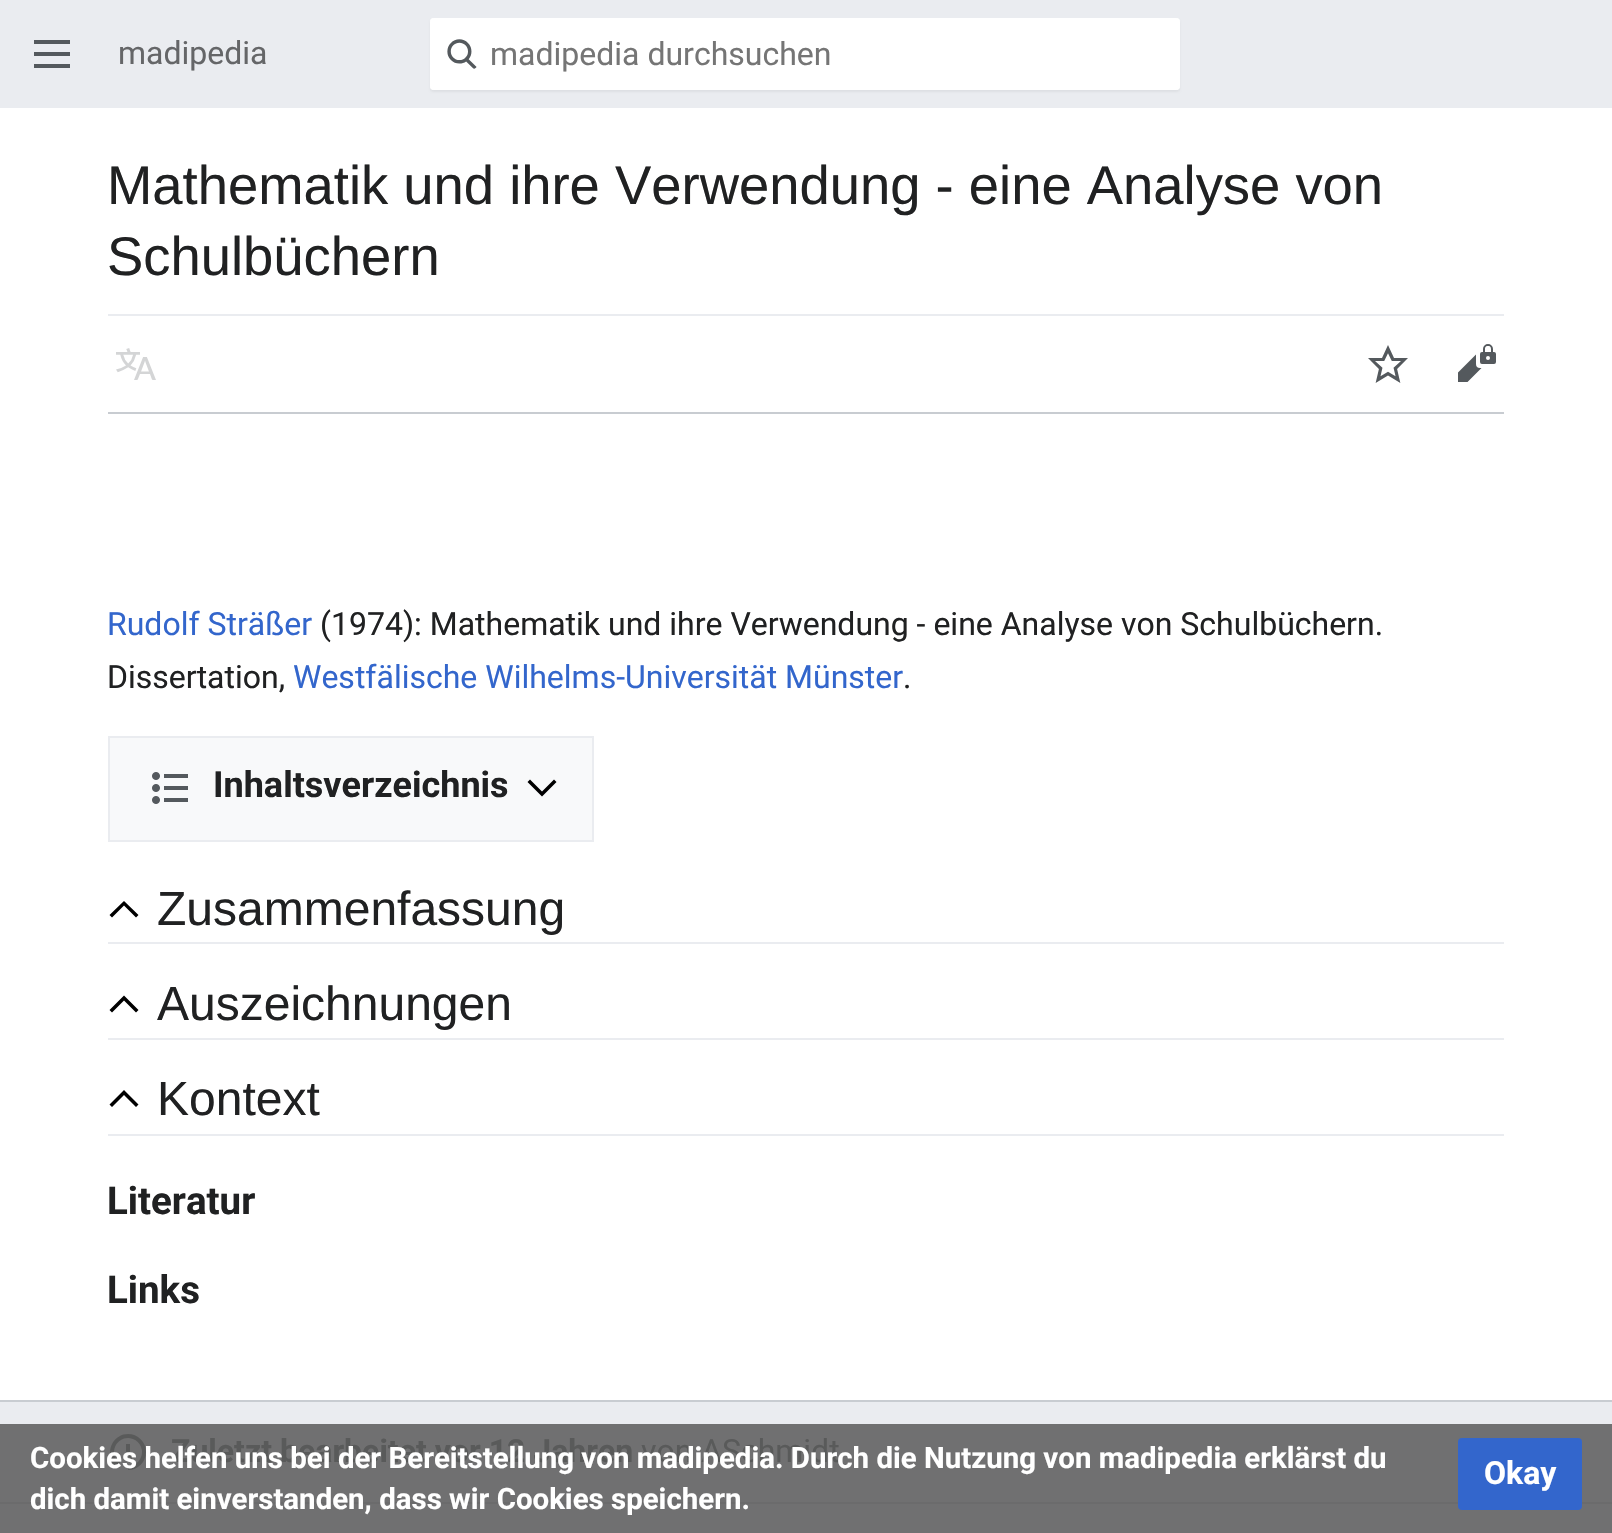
static SkFont makeFont(const char* family, int weight, float size, bool italic = false) {
  SkFontStyle style(weight, SkFontStyle::kNormal_Width,
    italic ? SkFontStyle::kItalic_Slant : SkFontStyle::kUpright_Slant);
  SkFont result(fontMgr->matchFamilyStyle(family, style), size);
  result.setSubpixel(true);
  return result;
}

static void text(SkCanvas* c, const char* s, float x, float y, const SkFont& font, SkColor color) {
  SkPaint ink(SkColor4f::FromColor(color));
  ink.setAntiAlias(true);
  c->drawString(s, x, y, font, ink);
}

static void box(SkCanvas* c, float l, float t, float r, float b, SkColor color) {
  SkPaint ink(SkColor4f::FromColor(color));
  ink.setAntiAlias(true);
  c->drawRect(SkRect::MakeLTRB(l, t, r, b), ink);
}

static void roundBox(SkCanvas* c, float l, float t, float r, float b, float radius, SkColor color) {
  SkPaint ink(SkColor4f::FromColor(color));
  ink.setAntiAlias(true);
  c->drawRoundRect(SkRect::MakeLTRB(l, t, r, b), radius, radius, ink);
}

static void picture(SkCanvas* c, const char* path, float l, float t, float r, float b) {
  auto image = SkImages::DeferredFromEncodedData(SkData::MakeFromFileName(path));
  c->drawImageRect(image, SkRect::MakeLTRB(l, t, r, b), SkSamplingOptions());
}

void draw(SkCanvas* c) {
  SkPaint paint;
  paint.setAntiAlias(true);
  c->clear(0xffeaecf0);
  box(c, 0, 1424, 1612, 1533, 0xff707071);
  picture(c, "img_01.png", 34, 40, 70, 68);
  SkFont face1 = makeFont("Roboto", 400, 32);
  text(c, "madipedia", 118, 64, face1, 0xff656668);
  paint.setColor(0x0d000000);
  paint.setMaskFilter(SkMaskFilter::MakeBlur(kNormal_SkBlurStyle, 1));
  c->drawRoundRect(SkRect::MakeLTRB(430, 20, 1180, 92), 4, 4, paint);
  paint.setMaskFilter(nullptr);
  roundBox(c, 430, 18, 1180, 90, 4, 0xffffffff);
  picture(c, "img_02.png", 447, 39, 477, 69);
  paint.setStyle(SkPaint::kStroke_Style);
  paint.setStrokeWidth(2);
  paint.setColor(0xffffffff);
  c->drawRoundRect(SkRect::MakeLTRB(431, 19, 1179, 89), 3, 3, paint);
  text(c, "madipedia durchsuchen", 490, 65, face1, 0xff757575);
  box(c, 0, 108, 1612, 1400, 0xffffffff);
  SkFont face2 = makeFont("Liberation Sans", 400, 54.4f);
  text(c, "Mathematik und ihre Verwendung - eine Analyse von", 107, 204, face2, 0xff202122);
  text(c, "Schulbüchern", 107, 275, face2, 0xff202122);
  box(c, 108, 314, 1504, 316, 0xffeaecf0);
  box(c, 108, 412, 1504, 414, 0xffc8ccd1);
  picture(c, "img_03.png", 116, 348, 156, 380);
  picture(c, "img_04.png", 1368, 345, 1408, 383);
  picture(c, "img_05.png", 1458, 344, 1496, 382);
  text(c, "Rudolf Sträßer", 107, 635, face1, 0xff3366cc);
  text(c, "(1974): Mathematik und ihre Verwendung - eine Analyse von Schulbüchern.", 320, 635, face1, 0xff202122);
  text(c, "Dissertation,", 107, 688, face1, 0xff202122);
  text(c, "Westfälische Wilhelms-Universität Münster", 293, 688, face1, 0xff3366cc);
  text(c, ".", 903, 688, face1, 0xff202122);
  paint.setStyle(SkPaint::kFill_Style);
  paint.setColor(0xfff8f9fa);
  c->drawRect(SkRect::MakeLTRB(109, 737, 593, 841), paint);
  paint.setStyle(SkPaint::kStroke_Style);
  paint.setColor(0xffeaecf0);
  c->drawRect(SkRect::MakeLTRB(109, 737, 593, 841), paint);
  picture(c, "img_06.png", 152, 772, 188, 804);
  SkFont face3 = makeFont("Roboto", 700, 36);
  text(c, "Inhaltsverzeichnis", 213, 797, face3, 0xff202122);
  paint.setStyle(SkPaint::kFill_Style);
  paint.setColor(0xff000000);
  c->drawPath(SkPathBuilder().moveTo(554, 779.5f).lineTo(542, 791.5f).lineTo(530, 779.5f).lineTo(527.5f, 782).lineTo(542, 796.5f).lineTo(556.5f, 782).close().detach(), paint);
  box(c, 108, 942, 1504, 944, 0xffeaecf0);
  c->drawPath(SkPathBuilder().moveTo(136, 917.5f).lineTo(124, 905.5f).lineTo(112, 917.5f).lineTo(109.5f, 915).lineTo(124, 901).lineTo(138.5f, 915).close().detach(), paint);
  SkFont face4 = makeFont("Liberation Sans", 400, 48);
  text(c, "Zusammenfassung", 157, 925, face4, 0xff202122);
  box(c, 108, 1038, 1504, 1040, 0xffeaecf0);
  c->drawPath(SkPathBuilder().moveTo(136, 1012.5f).lineTo(124, 1000.5f).lineTo(112, 1012.5f).lineTo(109.5f, 1010).lineTo(124, 995.5f).lineTo(138.5f, 1010).close().detach(), paint);
  text(c, "Auszeichnungen", 157, 1020, face4, 0xff202122);
  box(c, 108, 1134, 1504, 1136, 0xffeaecf0);
  c->drawPath(SkPathBuilder().moveTo(136, 1107).lineTo(124, 1095).lineTo(112, 1107).lineTo(109.5f, 1104.5f).lineTo(124, 1090).lineTo(138.5f, 1104.5f).close().detach(), paint);
  text(c, "Kontext", 157, 1115, face4, 0xff202122);
  SkFont face5 = makeFont("Roboto", 700, 38.5f);
  text(c, "Literatur", 107, 1214, face5, 0xff202122);
  text(c, "Links", 107, 1303, face5, 0xff202122);
  box(c, 0, 1400, 1612, 1402, 0xffc8ccd1);
  box(c, 0, 1502, 1612, 1504, 0xff6b6b6c);
  picture(c, "img_07.png", 109, 1434, 146, 1470);
  SkFont face6 = makeFont("Roboto", 700, 32);
  text(c, "Zuletzt bearbeitet vor 12 Jahren", 171, 1462, face6, 0xff595a5a);
  text(c, "von", 641, 1462, face1, 0xff595a5a);
  text(c, "ASchmidt", 701, 1462, face1, 0xff595a5a);
  SkFont face7 = makeFont("Roboto", 700, 29.45f);
  text(c, "Cookies helfen uns bei der Bereitstellung von madipedia. Durch die Nutzung von madipedia erklärst du", 30, 1468, face7, 0xffffffff);
  text(c, "dich damit einverstanden, dass wir Cookies speichern.", 30, 1509, face7, 0xffffffff);
  paint.setColor(0xff3366cc);
  c->drawRoundRect(SkRect::MakeLTRB(1459, 1439, 1581, 1509), 3, 3, paint);
  paint.setStyle(SkPaint::kStroke_Style);
  c->drawRoundRect(SkRect::MakeLTRB(1459, 1439, 1581, 1509), 3, 3, paint);
  text(c, "Okay", 1484, 1484, face6, 0xffffffff);
}
